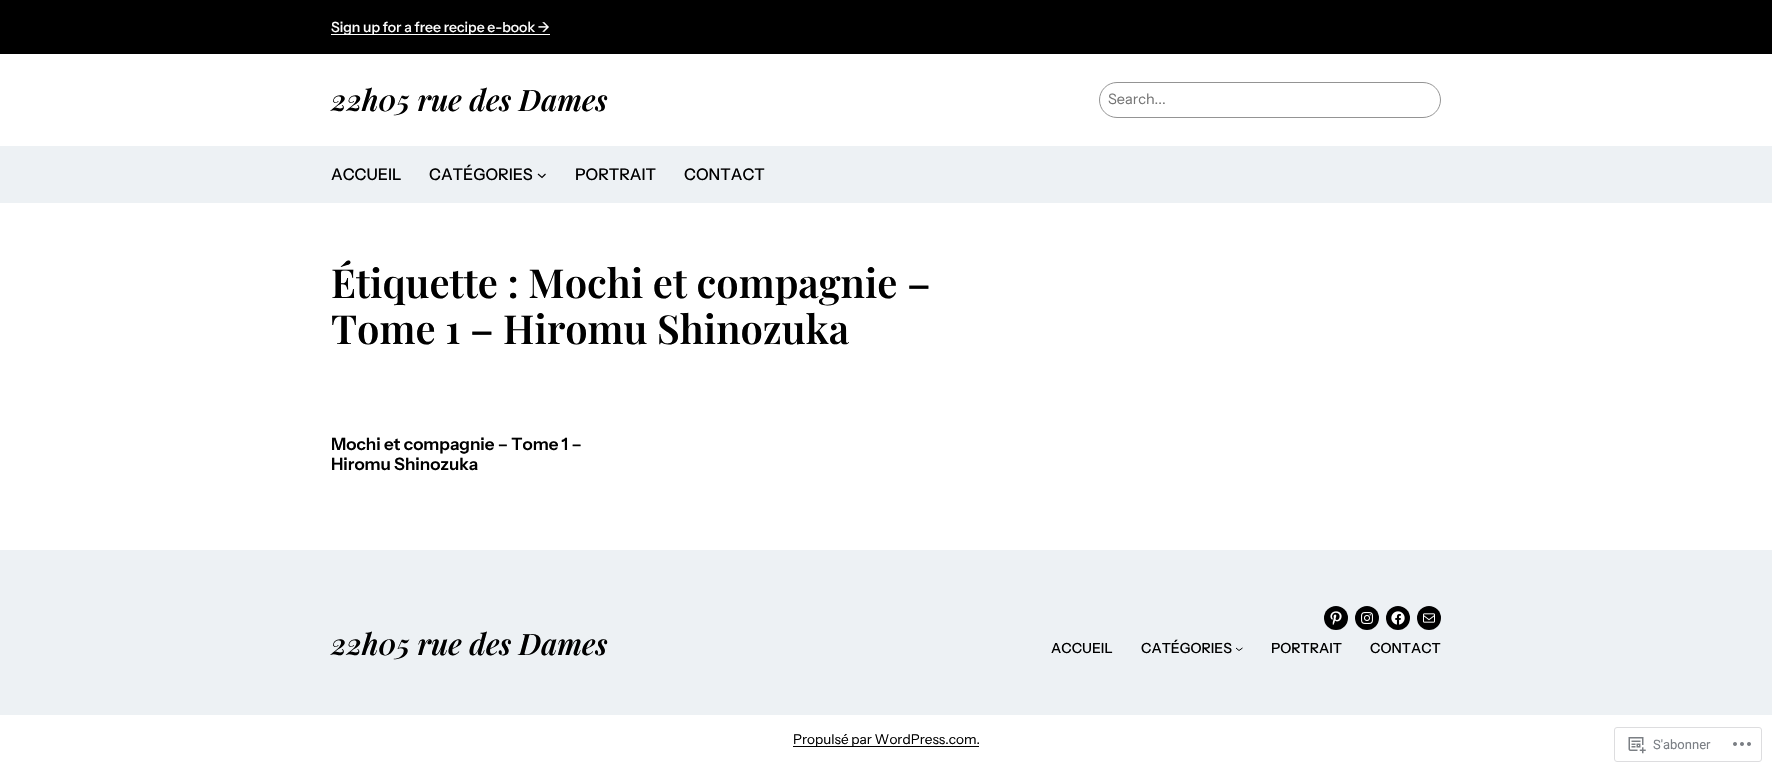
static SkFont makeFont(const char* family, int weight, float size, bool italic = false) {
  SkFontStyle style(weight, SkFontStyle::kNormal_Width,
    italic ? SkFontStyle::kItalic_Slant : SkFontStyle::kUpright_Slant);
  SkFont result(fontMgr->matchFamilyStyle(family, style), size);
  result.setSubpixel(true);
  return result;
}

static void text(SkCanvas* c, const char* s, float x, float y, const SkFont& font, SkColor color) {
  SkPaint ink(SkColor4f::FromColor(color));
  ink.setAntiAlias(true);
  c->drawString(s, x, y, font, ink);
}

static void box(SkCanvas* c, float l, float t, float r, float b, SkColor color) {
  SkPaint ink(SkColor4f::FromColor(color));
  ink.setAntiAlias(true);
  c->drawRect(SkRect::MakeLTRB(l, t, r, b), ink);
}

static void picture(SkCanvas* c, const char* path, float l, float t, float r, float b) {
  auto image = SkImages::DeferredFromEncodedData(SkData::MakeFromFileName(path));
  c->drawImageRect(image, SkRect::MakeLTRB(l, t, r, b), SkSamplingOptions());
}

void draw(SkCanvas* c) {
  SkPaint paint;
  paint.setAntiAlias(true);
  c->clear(0xffffffff);
  box(c, 0, 0, 1772, 54, 0xff000000);
  box(c, 331, 34, 550, 35, 0xffffffff);
  SkFont face1 = makeFont("Instrument Sans", 500, 14);
  text(c, "Sign up for a free recipe e-book →", 331, 32, face1, 0xffffffff);
  SkFont face2 = makeFont("Playfair Display", 600, 29.5f, true);
  text(c, "22h05 rue des Dames", 331, 111, face2, 0xff000000);
  paint.setStyle(SkPaint::kStroke_Style);
  paint.setStrokeWidth(1);
  paint.setColor(0xff949494);
  c->drawRoundRect(SkRect::MakeLTRB(1099.5f, 82.5f, 1440.5f, 117.5f), 17.5f, 17.5f, paint);
  SkFont face3 = makeFont("Instrument Sans", 400, 14.5f);
  text(c, "Search...", 1108, 104, face3, 0xff757575);
  box(c, 0, 146, 1772, 203, 0xffedf1f4);
  SkFont face4 = makeFont("Instrument Sans", 500, 16);
  text(c, "ACCUEIL", 331, 180, face4, 0xff000000);
  text(c, "CATÉGORIES", 429, 180, face4, 0xff000000);
  paint.setStrokeWidth(1.2f);
  paint.setColor(0xff000000);
  c->drawPath(SkPathBuilder().moveTo(538, 174).lineTo(542, 177.5f).lineTo(545.5f, 174).detach(), paint);
  text(c, "PORTRAIT", 575, 180, face4, 0xff000000);
  text(c, "CONTACT", 684, 180, face4, 0xff000000);
  SkFont face5 = makeFont("Playfair Display", 600, 40);
  text(c, "Étiquette : Mochi et compagnie –", 331, 298, face5, 0xff000000);
  text(c, "Tome 1 – Hiromu Shinozuka", 331, 344, face5, 0xff000000);
  SkFont face6 = makeFont("Instrument Sans", 600, 17);
  text(c, "Mochi et compagnie – Tome 1 –", 331, 450, face6, 0xff000000);
  text(c, "Hiromu Shinozuka", 331, 470, face6, 0xff000000);
  box(c, 0, 550, 1772, 715, 0xffedf1f4);
  text(c, "22h05 rue des Dames", 331, 655, face2, 0xff000000);
  paint.setStyle(SkPaint::kFill_Style);
  c->drawCircle(1336, 618, 12, paint);
  picture(c, "img_01.png", 1330, 611, 1342, 625);
  c->drawCircle(1367, 618, 12, paint);
  picture(c, "img_02.png", 1361, 612, 1373, 624);
  c->drawCircle(1398, 618, 12, paint);
  picture(c, "img_03.png", 1391, 611, 1405, 625);
  c->drawCircle(1429, 618, 12, paint);
  picture(c, "img_04.png", 1423, 613, 1435, 623);
  text(c, "ACCUEIL", 1051, 653, face1, 0xff000000);
  text(c, "CATÉGORIES", 1141, 653, face1, 0xff000000);
  paint.setStyle(SkPaint::kStroke_Style);
  paint.setStrokeWidth(1);
  c->drawPath(SkPathBuilder().moveTo(1236, 648).lineTo(1239, 650.5f).lineTo(1242.5f, 648).detach(), paint);
  text(c, "PORTRAIT", 1271, 653, face1, 0xff000000);
  text(c, "CONTACT", 1370, 653, face1, 0xff000000);
  box(c, 793, 746, 979, 747, 0xff000000);
  SkFont face7 = makeFont("Instrument Sans", 400, 13.6f);
  text(c, "Propulsé par WordPress.com.", 793, 744, face7, 0xff000000);
  paint.setColor(0xffdddddf);
  c->drawRoundRect(SkRect::MakeLTRB(1614.5f, 727.5f, 1761.5f, 761.5f), 2.5f, 2.5f, paint);
  picture(c, "img_05.png", 1628, 737, 1646, 754);
  SkFont face8 = makeFont("Roboto", 400, 13);
  text(c, "S'abonner", 1653, 749, face8, 0xff7b7f85);
  picture(c, "img_06.png", 1733, 742, 1751, 746);
}
